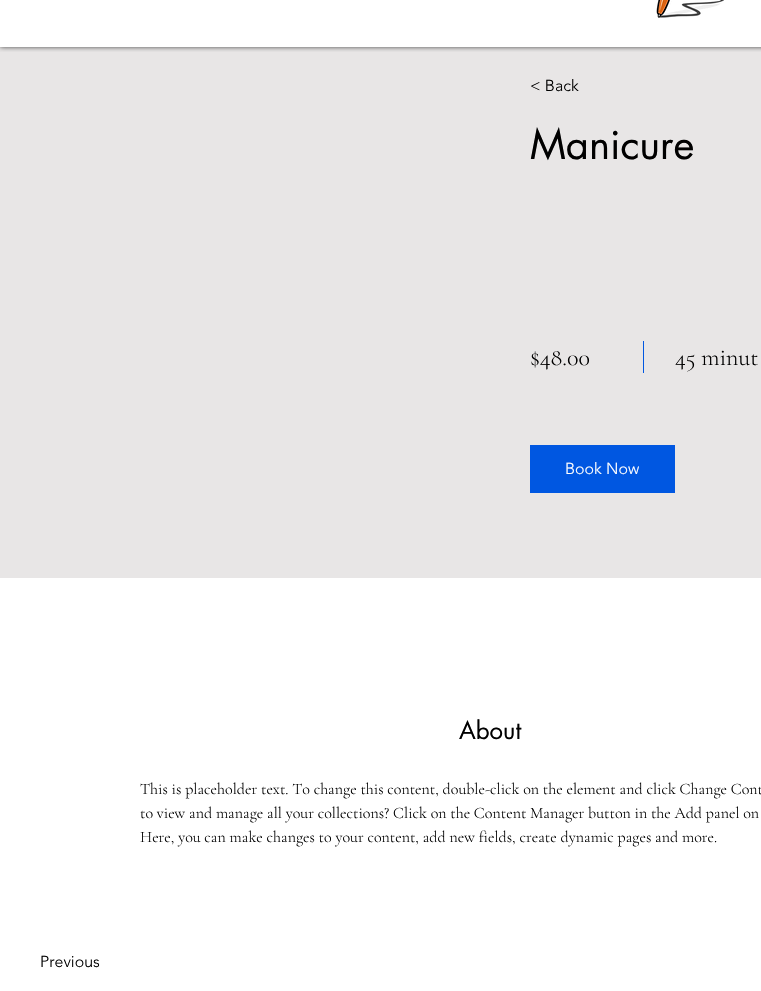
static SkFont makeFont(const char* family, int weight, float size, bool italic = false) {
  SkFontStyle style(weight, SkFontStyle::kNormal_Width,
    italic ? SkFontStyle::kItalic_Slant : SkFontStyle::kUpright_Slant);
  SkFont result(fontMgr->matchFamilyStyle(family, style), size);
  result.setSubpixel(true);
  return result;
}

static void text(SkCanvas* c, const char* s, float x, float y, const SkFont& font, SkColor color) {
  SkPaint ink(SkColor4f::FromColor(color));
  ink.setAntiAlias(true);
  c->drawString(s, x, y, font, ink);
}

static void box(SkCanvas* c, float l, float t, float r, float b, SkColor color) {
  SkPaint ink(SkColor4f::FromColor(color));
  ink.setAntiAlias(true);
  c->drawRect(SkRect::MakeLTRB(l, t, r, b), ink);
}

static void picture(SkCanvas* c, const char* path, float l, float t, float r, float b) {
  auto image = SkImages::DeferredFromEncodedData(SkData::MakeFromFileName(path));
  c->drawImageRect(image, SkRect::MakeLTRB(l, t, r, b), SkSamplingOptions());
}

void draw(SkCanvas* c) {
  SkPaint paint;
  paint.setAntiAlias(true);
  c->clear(0xffffffff);
  box(c, 0, 47, 761, 578, 0xffe8e6e6);
  c->save();
  c->clipRect(SkRect::MakeLTRB(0, 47, 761, 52));
  paint.setColor(0xb3000000);
  paint.setMaskFilter(SkMaskFilter::MakeBlur(kNormal_SkBlurStyle, 2.5f));
  c->drawRect(SkRect::MakeLTRB(0, -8, 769, 47), paint);
  paint.setMaskFilter(nullptr);
  c->restore();
  picture(c, "img_01.png", 656, 0, 724, 18);
  SkFont face1 = makeFont("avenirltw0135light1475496", 300, 16);
  text(c, "< Back", 530, 91, face1, 0xff000000);
  SkFont face2 = makeFont("futura", 400, 40);
  text(c, "Manicure", 530, 159, face2, 0xff000000);
  SkFont face3 = makeFont("Cormorant Garamond", 300, 24);
  text(c, "$48.00", 530, 365, face3, 0xff000000);
  box(c, 643, 341, 644, 373, 0xff0057e1);
  text(c, "45 minut", 675, 365, face3, 0xff000000);
  box(c, 530, 445, 675, 493, 0xff0057e1);
  text(c, "Book Now", 565, 474, face1, 0xffffffff);
  SkFont face4 = makeFont("futura", 400, 24);
  text(c, "About", 459, 739, face4, 0xff000000);
  SkFont face5 = makeFont("Cormorant Garamond", 300, 16);
  text(c, "This is placeholder text. To change this content, double-click on the element and click Change Cont", 140, 794, face5, 0xff000000);
  text(c, "to view and manage all your collections? Click on the Content Manager button in the Add panel on", 140, 818, face5, 0xff000000);
  text(c, "Here, you can make changes to your content, add new fields, create dynamic pages and more.", 140, 842, face5, 0xff000000);
  text(c, "Previous", 40, 967, face1, 0xff000000);
}
